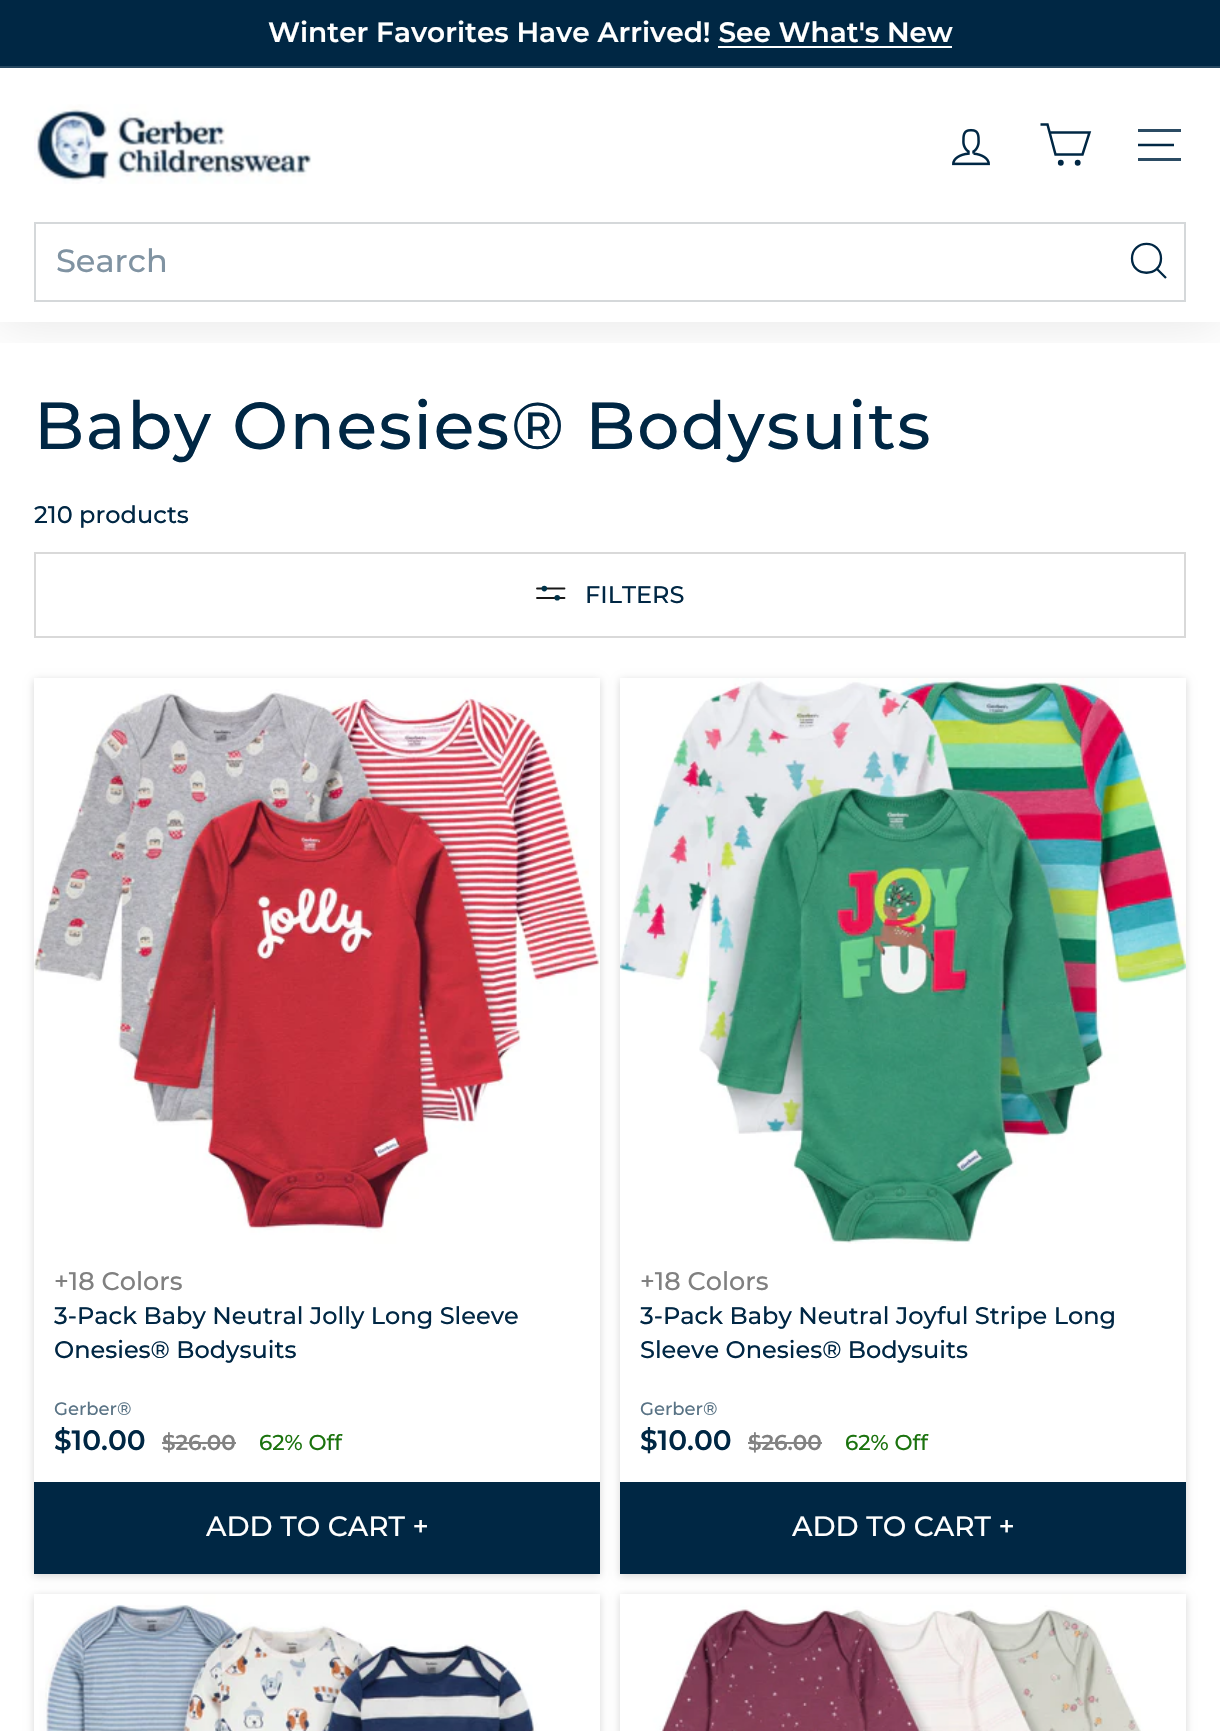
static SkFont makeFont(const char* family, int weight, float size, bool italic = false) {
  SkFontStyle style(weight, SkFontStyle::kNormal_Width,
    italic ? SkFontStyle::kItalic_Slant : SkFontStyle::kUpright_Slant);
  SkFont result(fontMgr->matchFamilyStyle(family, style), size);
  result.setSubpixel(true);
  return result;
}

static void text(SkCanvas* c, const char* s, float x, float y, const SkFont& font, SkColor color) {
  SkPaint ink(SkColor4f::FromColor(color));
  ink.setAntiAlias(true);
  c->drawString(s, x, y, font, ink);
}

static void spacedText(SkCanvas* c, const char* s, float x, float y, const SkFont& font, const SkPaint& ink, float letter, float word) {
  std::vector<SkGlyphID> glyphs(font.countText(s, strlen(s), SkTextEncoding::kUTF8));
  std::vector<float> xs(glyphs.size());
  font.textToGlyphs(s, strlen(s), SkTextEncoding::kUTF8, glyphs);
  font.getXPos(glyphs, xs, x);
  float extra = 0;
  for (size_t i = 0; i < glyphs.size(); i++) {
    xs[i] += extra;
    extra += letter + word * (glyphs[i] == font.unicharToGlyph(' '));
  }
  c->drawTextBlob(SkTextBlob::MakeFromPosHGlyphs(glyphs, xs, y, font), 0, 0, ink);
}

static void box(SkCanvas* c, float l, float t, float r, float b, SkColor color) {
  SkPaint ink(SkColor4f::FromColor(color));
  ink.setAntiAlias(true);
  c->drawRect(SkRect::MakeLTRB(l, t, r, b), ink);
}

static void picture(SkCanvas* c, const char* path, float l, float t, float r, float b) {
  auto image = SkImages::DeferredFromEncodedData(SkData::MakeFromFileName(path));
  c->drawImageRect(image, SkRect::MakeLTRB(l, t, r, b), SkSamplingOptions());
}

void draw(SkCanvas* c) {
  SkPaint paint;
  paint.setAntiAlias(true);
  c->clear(0xffffffff);
  c->save();
  c->clipRect(SkRect::MakeLTRB(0, 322, 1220, 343));
  paint.setColor(0x1a000000);
  paint.setMaskFilter(SkMaskFilter::MakeBlur(kNormal_SkBlurStyle, 25));
  c->drawRect(SkRect::MakeLTRB(0, 68, 1220, 322), paint);
  paint.setMaskFilter(nullptr);
  c->restore();
  box(c, 0, 0, 1220, 66, 0xff002744);
  SkFont face1 = makeFont("Montserrat", 600, 28);
  text(c, "Winter Favorites Have Arrived! See What's New", 268, 42, face1, 0xffffffff);
  box(c, 718, 46, 952, 48, 0xffffffff);
  box(c, 0, 66, 1220, 68, 0xff264760);
  picture(c, "img_01.png", 34, 104, 312, 184);
  picture(c, "img_02.png", 952, 128, 990, 166);
  paint.setStyle(SkPaint::kStroke_Style);
  paint.setStrokeWidth(2.5f);
  paint.setColor(0xff002744);
  c->drawPath(SkPathBuilder().moveTo(1050, 132.5f).lineTo(1089.5f, 132.5f).lineTo(1082.5f, 154.5f).lineTo(1055.5f, 154.5f).lineTo(1047.5f, 124.5f).lineTo(1040.5f, 124.5f).detach(), paint);
  paint.setStyle(SkPaint::kFill_Style);
  c->drawCircle(1060.8f, 162.7f, 1.7f, paint);
  paint.setStyle(SkPaint::kStroke_Style);
  c->drawCircle(1060.8f, 162.7f, 1.7f, paint);
  paint.setStyle(SkPaint::kFill_Style);
  c->drawCircle(1077.7f, 162.7f, 1.7f, paint);
  paint.setStyle(SkPaint::kStroke_Style);
  c->drawCircle(1077.7f, 162.7f, 1.7f, paint);
  box(c, 1138, 129, 1181, 132, 0xff2b4b63);
  c->drawPath(SkPathBuilder().moveTo(1138, 145).lineTo(1174, 145).detach(), paint);
  box(c, 1138, 158, 1181, 161, 0xff2b4b63);
  paint.setStrokeWidth(2);
  paint.setColor(0xffd5d8da);
  c->drawRect(SkRect::MakeLTRB(35, 223, 1185, 301), paint);
  SkFont face2 = makeFont("Montserrat", 500, 32);
  text(c, "Search", 56, 272, face2, 0xff8093a2);
  paint.setStrokeWidth(2.3f);
  paint.setColor(0xff002744);
  c->drawPath(SkPathBuilder().moveTo(1161, 258.5f).cubicTo(1161, 277.5f, 1132, 277.5f, 1132, 258.5f).cubicTo(1132, 239, 1161, 239, 1161, 258.5f).moveTo(1166, 278).lineTo(1157, 269).detach(), paint);
  SkFont face3 = makeFont("Montserrat", 500, 66.25f);
  paint.setStyle(SkPaint::kFill_Style);
  spacedText(c, "Baby Onesies® Bodysuits", 34, 449, face3, paint, 1.7f, 0);
  SkFont face4 = makeFont("Montserrat", 500, 24);
  text(c, "210 products", 34, 523, face4, 0xff002744);
  paint.setStyle(SkPaint::kStroke_Style);
  paint.setStrokeWidth(2);
  paint.setColor(0xffd9d9d9);
  c->drawRect(SkRect::MakeLTRB(35, 553, 1185, 637), paint);
  paint.setStrokeWidth(1.8f);
  paint.setStrokeCap(SkPaint::kRound_Cap);
  paint.setColor(0xff181818);
  c->drawPath(SkPathBuilder().moveTo(537, 588.5f).lineTo(564.5f, 588.5f).moveTo(537, 598).lineTo(564.5f, 598).detach(), paint);
  paint.setStyle(SkPaint::kFill_Style);
  paint.setColor(0xff00334a);
  c->drawCircle(544.3f, 588.6f, 2.8f, paint);
  c->drawCircle(557.2f, 597.8f, 2.8f, paint);
  text(c, "FILTERS", 585, 603, face4, 0xff002744);
  c->save();
  c->clipPath(SkPathBuilder(SkPathFillType::kEvenOdd).moveTo(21, 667).lineTo(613, 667).lineTo(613, 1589).lineTo(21, 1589).close().moveTo(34, 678).lineTo(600, 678).lineTo(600, 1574).lineTo(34, 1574).close().detach(), true);
  paint.setColor(0x29000000);
  paint.setMaskFilter(SkMaskFilter::MakeBlur(kNormal_SkBlurStyle, 4));
  c->drawRect(SkRect::MakeLTRB(34, 680, 600, 1576), paint);
  paint.setMaskFilter(nullptr);
  c->restore();
  picture(c, "img_03.png", 34, 678, 600, 1244);
  SkFont face5 = makeFont("Montserrat", 500, 25.5f);
  text(c, "+18 Colors", 54, 1290, face5, 0xff808080);
  text(c, "3-Pack Baby Neutral Jolly Long Sleeve", 54, 1324, face4, 0xff002744);
  text(c, "Onesies® Bodysuits", 54, 1358, face4, 0xff002744);
  SkFont face6 = makeFont("Montserrat", 500, 18);
  text(c, "Gerber®", 54, 1415, face6, 0xff597385);
  text(c, "$10.00", 54, 1450, face1, 0xff002744);
  SkFont face7 = makeFont("Montserrat", 600, 21.5f);
  text(c, "$26.00", 162, 1450, face7, 0xff808080);
  box(c, 162, 1442, 236, 1444, 0xff858585);
  SkFont face8 = makeFont("Montserrat", 500, 21.5f);
  text(c, "62% Off", 259, 1450, face8, 0xff1b730e);
  box(c, 34, 1482, 600, 1574, 0xff002744);
  SkFont face9 = makeFont("Montserrat", 500, 28);
  text(c, "ADD TO CART +", 206, 1536, face9, 0xffffffff);
  c->save();
  c->clipPath(SkPathBuilder(SkPathFillType::kEvenOdd).moveTo(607, 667).lineTo(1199, 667).lineTo(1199, 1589).lineTo(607, 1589).close().moveTo(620, 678).lineTo(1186, 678).lineTo(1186, 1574).lineTo(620, 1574).close().detach(), true);
  paint.setMaskFilter(SkMaskFilter::MakeBlur(kNormal_SkBlurStyle, 4));
  c->drawRect(SkRect::MakeLTRB(620, 680, 1186, 1576), paint);
  paint.setMaskFilter(nullptr);
  c->restore();
  picture(c, "img_04.png", 620, 678, 1186, 1244);
  text(c, "+18 Colors", 640, 1290, face5, 0xff808080);
  text(c, "3-Pack Baby Neutral Joyful Stripe Long", 640, 1324, face4, 0xff002744);
  text(c, "Sleeve Onesies® Bodysuits", 640, 1358, face4, 0xff002744);
  text(c, "Gerber®", 640, 1415, face6, 0xff597385);
  text(c, "$10.00", 640, 1450, face1, 0xff002744);
  text(c, "$26.00", 748, 1450, face7, 0xff808080);
  box(c, 748, 1442, 822, 1444, 0xff858585);
  text(c, "62% Off", 845, 1450, face8, 0xff1b730e);
  box(c, 620, 1482, 1186, 1574, 0xff002744);
  text(c, "ADD TO CART +", 792, 1536, face9, 0xffffffff);
  paint.setMaskFilter(SkMaskFilter::MakeBlur(kNormal_SkBlurStyle, 4));
  c->drawRect(SkRect::MakeLTRB(34, 1596, 600, 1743), paint);
  paint.setMaskFilter(nullptr);
  picture(c, "img_05.png", 34, 1594, 600, 1731);
  paint.setMaskFilter(SkMaskFilter::MakeBlur(kNormal_SkBlurStyle, 4));
  c->drawRect(SkRect::MakeLTRB(620, 1596, 1186, 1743), paint);
  paint.setMaskFilter(nullptr);
  picture(c, "img_06.png", 620, 1594, 1186, 1731);
}
